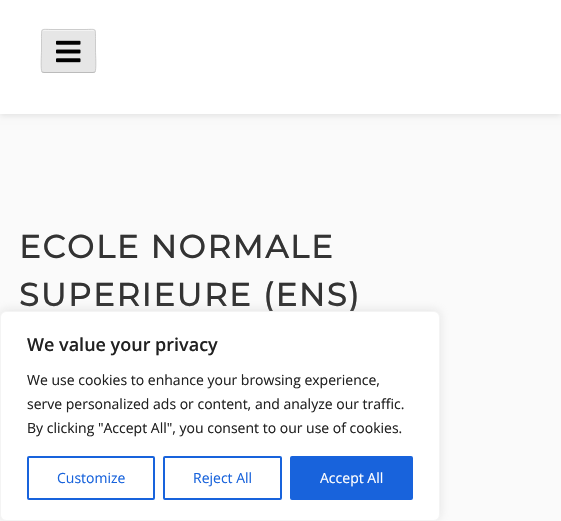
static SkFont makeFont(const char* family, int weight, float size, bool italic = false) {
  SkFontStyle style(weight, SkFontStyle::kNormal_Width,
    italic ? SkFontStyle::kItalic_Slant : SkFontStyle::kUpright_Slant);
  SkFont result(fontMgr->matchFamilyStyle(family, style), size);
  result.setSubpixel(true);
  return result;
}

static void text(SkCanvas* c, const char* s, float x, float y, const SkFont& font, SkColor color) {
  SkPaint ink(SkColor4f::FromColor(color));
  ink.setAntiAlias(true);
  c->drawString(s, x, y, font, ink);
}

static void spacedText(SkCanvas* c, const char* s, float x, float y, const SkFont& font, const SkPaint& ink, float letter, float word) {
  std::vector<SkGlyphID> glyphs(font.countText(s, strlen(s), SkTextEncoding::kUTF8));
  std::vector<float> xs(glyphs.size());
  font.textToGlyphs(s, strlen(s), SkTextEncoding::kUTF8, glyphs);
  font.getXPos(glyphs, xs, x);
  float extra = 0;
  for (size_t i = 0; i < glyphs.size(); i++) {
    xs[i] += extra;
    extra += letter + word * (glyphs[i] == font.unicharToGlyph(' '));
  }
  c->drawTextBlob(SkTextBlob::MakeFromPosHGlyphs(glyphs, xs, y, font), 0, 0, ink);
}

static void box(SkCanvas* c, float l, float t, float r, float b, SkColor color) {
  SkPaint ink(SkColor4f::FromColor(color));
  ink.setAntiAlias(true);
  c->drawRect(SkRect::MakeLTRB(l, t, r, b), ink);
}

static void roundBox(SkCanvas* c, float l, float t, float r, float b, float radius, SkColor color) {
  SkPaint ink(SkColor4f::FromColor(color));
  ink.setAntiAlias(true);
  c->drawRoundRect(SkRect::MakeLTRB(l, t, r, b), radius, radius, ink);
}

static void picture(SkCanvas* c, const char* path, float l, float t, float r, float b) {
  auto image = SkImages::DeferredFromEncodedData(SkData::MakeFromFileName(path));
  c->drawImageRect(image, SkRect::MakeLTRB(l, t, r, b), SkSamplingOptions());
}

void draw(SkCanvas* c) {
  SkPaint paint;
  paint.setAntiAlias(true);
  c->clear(0xfffafafa);
  paint.setColor(0x17000000);
  paint.setMaskFilter(SkMaskFilter::MakeBlur(kNormal_SkBlurStyle, 3));
  c->drawRect(SkRect::MakeLTRB(0, 2, 561, 116), paint);
  paint.setMaskFilter(nullptr);
  box(c, 0, 0, 561, 114, 0xffffffff);
  roundBox(c, 41, 29, 96, 73, 3, 0xffe6e6e6);
  paint.setColor(0xfff3f3f3);
  c->drawPath(SkPathBuilder().moveTo(44, 31).lineTo(93, 31).cubicTo(94, 31, 95, 32, 95, 33).cubicTo(95, 28, 89, 30, 85, 30).lineTo(52, 30).cubicTo(48, 30, 42, 28, 42, 33).cubicTo(42, 32, 43, 31, 44, 31).close().detach(), paint);
  paint.setStyle(SkPaint::kStroke_Style);
  paint.setStrokeWidth(1);
  paint.setColor(0xffbbbbbb);
  c->drawPath(SkPathBuilder().moveTo(95, 72).lineTo(93, 72.5f).lineTo(44, 72.5f).lineTo(42, 72).detach(), paint);
  paint.setColor(0xffcccccc);
  c->drawPath(SkPathBuilder().moveTo(42, 72).cubicTo(40.5f, 70, 41.5f, 54, 41.5f, 51).lineTo(41.5f, 38.5f).cubicTo(41.5f, 27.5f, 41, 29.5f, 52, 29.5f).lineTo(85, 29.5f).cubicTo(96, 29.5f, 95.5f, 27.5f, 95.5f, 38.5f).lineTo(95.5f, 51).cubicTo(95.5f, 54, 96.5f, 70, 95, 72).detach(), paint);
  picture(c, "img_01.png", 56, 40, 81, 63);
  SkFont face1 = makeFont("Montserrat", 700, 32);
  paint.setStyle(SkPaint::kFill_Style);
  paint.setColor(0xff333333);
  spacedText(c, "ECOLE NORMALE", 19, 258, face1, paint, 2, 0);
  spacedText(c, "SUPERIEURE (ENS)", 19, 306, face1, paint, 2, 0);
  paint.setColor(0x4dacabab);
  paint.setMaskFilter(SkMaskFilter::MakeBlur(kNormal_SkBlurStyle, 5));
  c->drawRoundRect(SkRect::MakeLTRB(0, 310, 440, 520), 6, 6, paint);
  paint.setMaskFilter(nullptr);
  paint.setColor(0xffffffff);
  c->drawRoundRect(SkRect::MakeLTRB(0.5f, 311.5f, 439.5f, 520.5f), 5.5f, 5.5f, paint);
  paint.setStyle(SkPaint::kStroke_Style);
  paint.setColor(0xfff4f4f4);
  c->drawRoundRect(SkRect::MakeLTRB(0.5f, 311.5f, 439.5f, 520.5f), 5.5f, 5.5f, paint);
  SkFont face2 = makeFont("Open Sans", 600, 18);
  text(c, "We value your privacy", 27, 351, face2, 0xff212121);
  SkFont face3 = makeFont("Open Sans", 400, 14);
  text(c, "We use cookies to enhance your browsing experience,", 27, 385, face3, 0xff212121);
  text(c, "serve personalized ads or content, and analyze our traffic.", 27, 409, face3, 0xff212121);
  text(c, "By clicking \"Accept All\", you consent to our use of cookies.", 27, 433, face3, 0xff212121);
  paint.setStrokeWidth(2);
  paint.setColor(0xff1863dc);
  c->drawRoundRect(SkRect::MakeLTRB(28, 457, 154, 499), 1, 1, paint);
  text(c, "Customize", 57, 483, face3, 0xff1863dc);
  c->drawRoundRect(SkRect::MakeLTRB(164, 457, 281, 499), 1, 1, paint);
  text(c, "Reject All", 193, 483, face3, 0xff1863dc);
  paint.setStyle(SkPaint::kFill_Style);
  c->drawRoundRect(SkRect::MakeLTRB(291, 457, 412, 499), 1, 1, paint);
  paint.setStyle(SkPaint::kStroke_Style);
  c->drawRoundRect(SkRect::MakeLTRB(291, 457, 412, 499), 1, 1, paint);
  text(c, "Accept All", 320, 483, face3, 0xffffffff);
}
